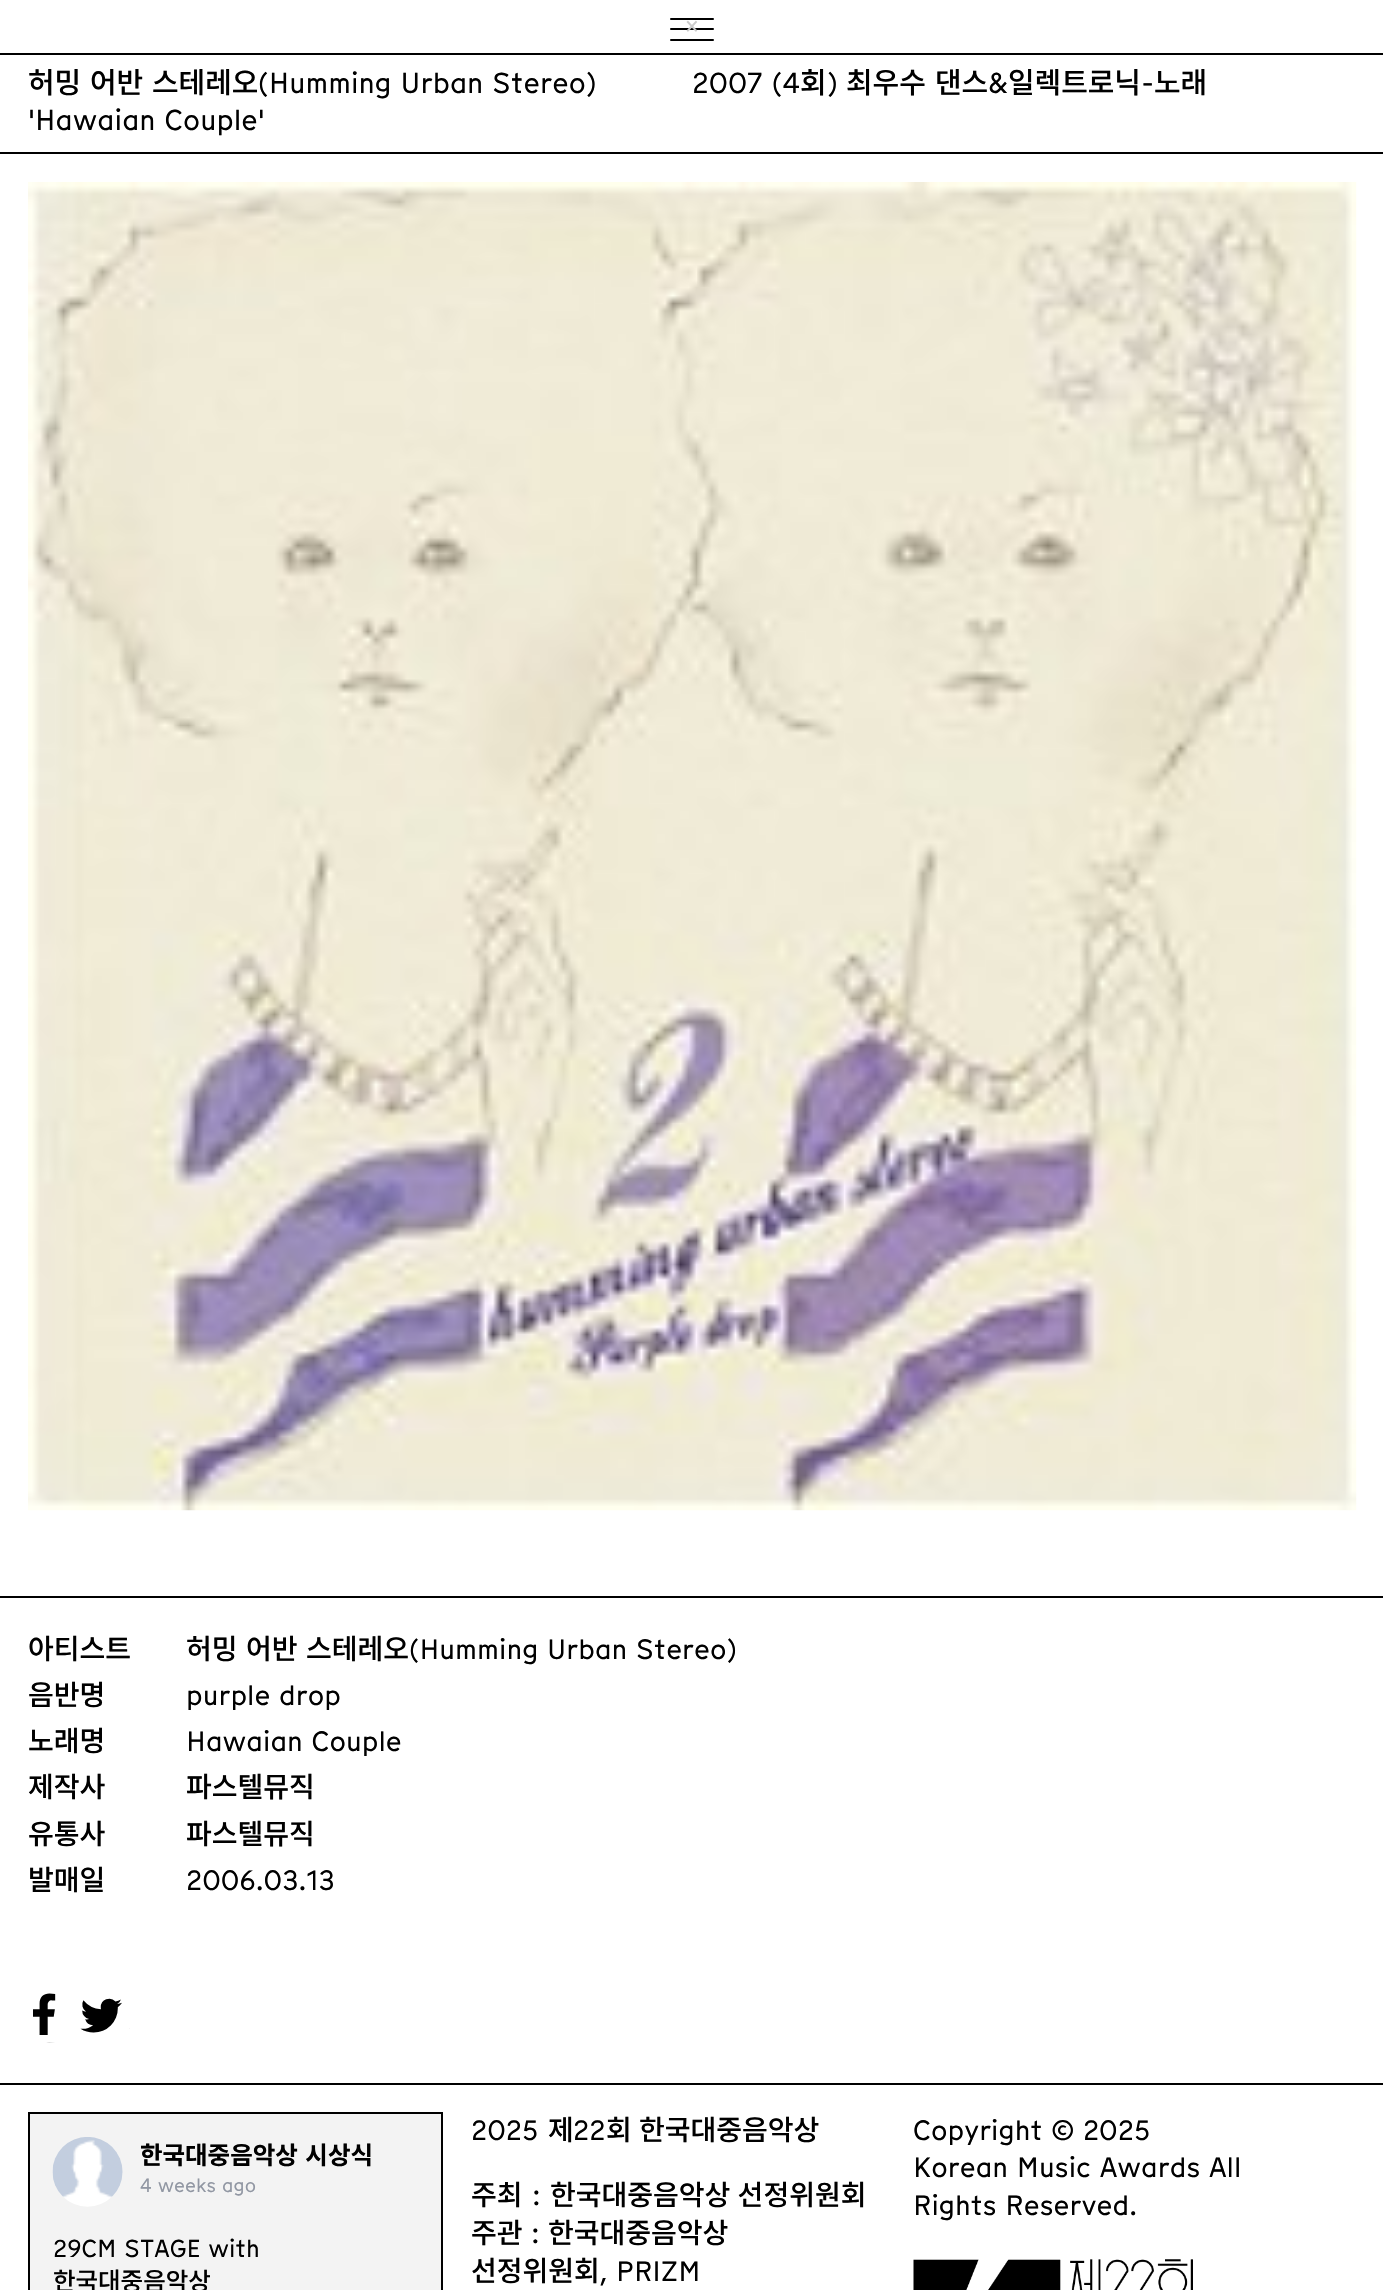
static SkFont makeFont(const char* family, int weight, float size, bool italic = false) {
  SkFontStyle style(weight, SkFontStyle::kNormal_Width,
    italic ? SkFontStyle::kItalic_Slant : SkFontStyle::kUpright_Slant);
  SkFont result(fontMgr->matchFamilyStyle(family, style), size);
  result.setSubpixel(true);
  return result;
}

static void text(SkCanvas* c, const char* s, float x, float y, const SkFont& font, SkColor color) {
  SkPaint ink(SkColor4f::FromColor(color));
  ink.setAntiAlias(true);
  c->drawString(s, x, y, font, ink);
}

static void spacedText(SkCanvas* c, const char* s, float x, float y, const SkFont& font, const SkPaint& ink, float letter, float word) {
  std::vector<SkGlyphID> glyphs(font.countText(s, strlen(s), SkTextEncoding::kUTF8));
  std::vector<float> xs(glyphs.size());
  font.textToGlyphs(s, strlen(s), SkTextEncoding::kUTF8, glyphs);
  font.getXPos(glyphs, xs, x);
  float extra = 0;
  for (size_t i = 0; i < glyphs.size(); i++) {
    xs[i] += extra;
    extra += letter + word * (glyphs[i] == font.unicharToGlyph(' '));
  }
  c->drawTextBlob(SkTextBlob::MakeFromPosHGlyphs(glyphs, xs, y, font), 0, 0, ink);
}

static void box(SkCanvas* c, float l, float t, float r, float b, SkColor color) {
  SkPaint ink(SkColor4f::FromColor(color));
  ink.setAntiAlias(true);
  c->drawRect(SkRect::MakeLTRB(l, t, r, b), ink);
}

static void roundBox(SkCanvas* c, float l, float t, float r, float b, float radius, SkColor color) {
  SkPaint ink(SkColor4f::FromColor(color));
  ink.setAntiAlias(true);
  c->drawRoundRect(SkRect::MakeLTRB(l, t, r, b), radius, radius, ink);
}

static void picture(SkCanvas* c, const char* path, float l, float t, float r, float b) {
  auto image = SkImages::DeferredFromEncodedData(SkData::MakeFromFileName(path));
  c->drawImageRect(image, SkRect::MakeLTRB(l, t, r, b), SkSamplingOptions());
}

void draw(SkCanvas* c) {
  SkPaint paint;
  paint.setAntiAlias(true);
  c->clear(0xffffffff);
  box(c, 0, 53, 1383, 55, 0xff000000);
  roundBox(c, 670, 28, 714, 30, 1, 0xff000000);
  roundBox(c, 670, 18, 714, 20, 1, 0xff000000);
  roundBox(c, 670, 39, 714, 41, 1, 0xff000000);
  SkFont face1 = makeFont("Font", 400, 23);
  text(c, "×", 685, 34, face1, 0xffcbcbcb);
  box(c, 0, 152, 1383, 154, 0xff000000);
  SkFont face2 = makeFont("Noto Sans KR", 500, 28.9f);
  text(c, "허밍", 28, 93, face2, 0xff000000);
  text(c, "어반", 90, 93, face2, 0xff000000);
  text(c, "스테레오", 152, 93, face2, 0xff000000);
  SkFont face3 = makeFont("Font", 400, 28.9f);
  text(c, "(Humming Urban Stereo)", 258, 93, face3, 0xff000000);
  text(c, "'Hawaian Couple'", 28, 130, face3, 0xff000000);
  text(c, "2007 (4", 692, 93, face3, 0xff000000);
  text(c, "회", 800, 93, face2, 0xff000000);
  text(c, ")", 827, 93, face3, 0xff000000);
  text(c, "최우수", 846, 93, face2, 0xff000000);
  text(c, "댄스", 935, 93, face2, 0xff000000);
  text(c, "&", 988, 93, face3, 0xff000000);
  text(c, "일렉트로닉", 1008, 93, face2, 0xff000000);
  text(c, "-", 1141, 93, face3, 0xff000000);
  text(c, "노래", 1154, 93, face2, 0xff000000);
  picture(c, "img_01.png", 28, 182, 1357, 1511);
  box(c, 0, 1596, 1383, 1598, 0xff000000);
  SkFont face4 = makeFont("Noto Sans KR", 500, 28);
  text(c, "아티스트", 28, 1659, face4, 0xff000000);
  text(c, "허밍", 186, 1659, face4, 0xff000000);
  text(c, "어반", 246, 1659, face4, 0xff000000);
  text(c, "스테레오", 306, 1659, face4, 0xff000000);
  SkFont face5 = makeFont("Font", 400, 28);
  text(c, "(Humming Urban Stereo)", 409, 1659, face5, 0xff000000);
  text(c, "음반명", 28, 1705, face4, 0xff000000);
  text(c, "purple drop", 186, 1705, face5, 0xff000000);
  text(c, "노래명", 28, 1751, face4, 0xff000000);
  text(c, "Hawaian Couple", 186, 1751, face5, 0xff000000);
  text(c, "제작사", 28, 1797, face4, 0xff000000);
  text(c, "파스텔뮤직", 186, 1797, face4, 0xff000000);
  text(c, "유통사", 28, 1844, face4, 0xff000000);
  text(c, "파스텔뮤직", 186, 1844, face4, 0xff000000);
  text(c, "발매일", 28, 1890, face4, 0xff000000);
  text(c, "2006.03.13", 186, 1890, face5, 0xff000000);
  picture(c, "img_02.png", 33, 1993, 56, 2043);
  picture(c, "img_03.png", 80, 1998, 130, 2033);
  box(c, 0, 2083, 1383, 2085, 0xff000000);
  paint.setColor(0xfff3f3f3);
  c->drawRect(SkRect::MakeLTRB(29, 2113, 442, 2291), paint);
  paint.setStyle(SkPaint::kStroke_Style);
  paint.setStrokeWidth(2);
  paint.setColor(0xff000000);
  c->drawRect(SkRect::MakeLTRB(29, 2113, 442, 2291), paint);
  picture(c, "img_04.png", 52, 2137, 123, 2207);
  SkFont face6 = makeFont("Noto Sans KR", 700, 24.5f);
  paint.setStyle(SkPaint::kFill_Style);
  spacedText(c, "한국대중음악상 시상식", 140, 2164, face6, paint, 0, 2);
  SkFont face7 = makeFont("Font", 400, 19.25f);
  text(c, "4 weeks ago", 140, 2192, face7, 0xff9197a3);
  SkFont face8 = makeFont("Font", 400, 24.5f);
  text(c, "29CM STAGE with", 53, 2257, face8, 0xff000000);
  SkFont face9 = makeFont("Noto Sans KR", 500, 24.5f);
  text(c, "한국대중음악상", 53, 2290, face9, 0xff000000);
  text(c, "2025", 471, 2140, face5, 0xff000000);
  text(c, "제", 548, 2140, face4, 0xff000000);
  text(c, "22", 573, 2140, face5, 0xff000000);
  spacedText(c, "회 한국대중음악상", 606, 2140, face4, paint, 0, 1);
  text(c, "주최", 471, 2205, face4, 0xff000000);
  text(c, ":", 532, 2205, face5, 0xff000000);
  spacedText(c, "한국대중음악상 선정위원회", 550, 2205, face4, paint, 0, 1);
  text(c, "주관", 471, 2243, face4, 0xff000000);
  text(c, ":", 531, 2243, face5, 0xff000000);
  text(c, "한국대중음악상", 548, 2243, face4, 0xff000000);
  text(c, "선정위원회", 471, 2281, face4, 0xff000000);
  text(c, ", PRIZM", 600, 2281, face5, 0xff000000);
  text(c, "Copyright © 2025", 913, 2140, face5, 0xff000000);
  text(c, "Korean Music Awards All", 913, 2177, face5, 0xff000000);
  text(c, "Rights Reserved.", 913, 2215, face5, 0xff000000);
  picture(c, "img_05.png", 913, 2259, 1193, 2290);
}
